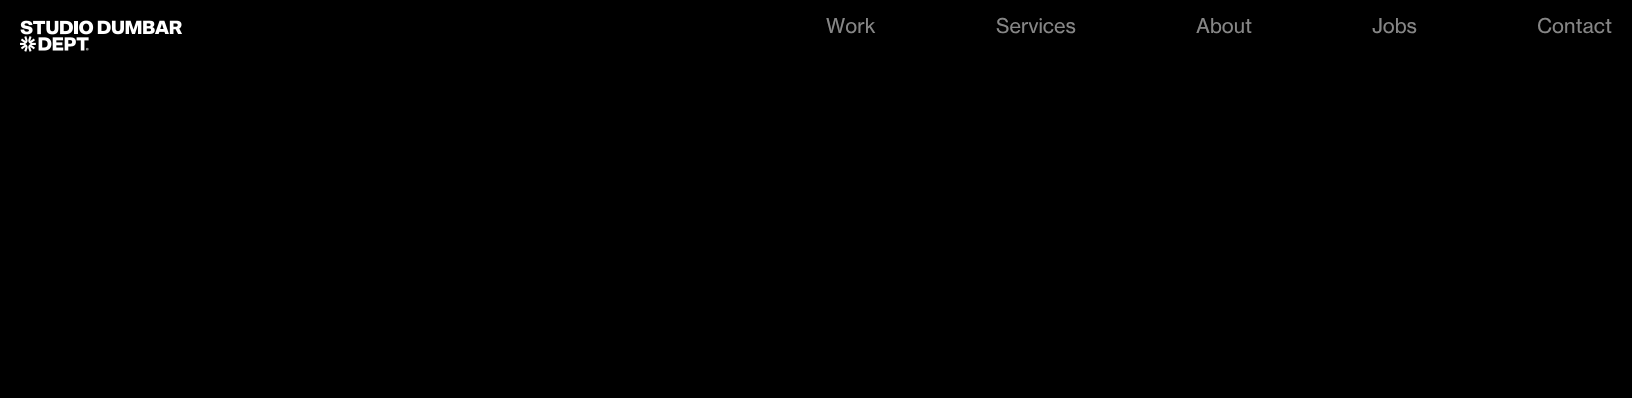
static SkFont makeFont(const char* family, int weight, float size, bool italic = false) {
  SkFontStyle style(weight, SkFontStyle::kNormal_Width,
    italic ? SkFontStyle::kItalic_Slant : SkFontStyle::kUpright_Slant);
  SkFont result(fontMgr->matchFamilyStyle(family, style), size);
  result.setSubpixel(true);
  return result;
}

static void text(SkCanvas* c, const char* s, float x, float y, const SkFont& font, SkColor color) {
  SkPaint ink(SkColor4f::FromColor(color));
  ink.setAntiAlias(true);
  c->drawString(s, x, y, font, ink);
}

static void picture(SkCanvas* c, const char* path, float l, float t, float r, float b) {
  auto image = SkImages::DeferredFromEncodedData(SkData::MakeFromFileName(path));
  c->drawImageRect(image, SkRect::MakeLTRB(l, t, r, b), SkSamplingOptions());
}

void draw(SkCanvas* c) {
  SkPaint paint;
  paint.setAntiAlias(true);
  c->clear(0xff000000);
  picture(c, "img_01.png", 20, 20, 182, 52);
  SkFont face1 = makeFont("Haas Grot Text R", 400, 20);
  text(c, "Work", 826, 33, face1, 0xff868686);
  text(c, "Services", 996, 33, face1, 0xff868686);
  text(c, "About", 1196, 33, face1, 0xff868686);
  text(c, "Jobs", 1372, 33, face1, 0xff868686);
  text(c, "Contact", 1537, 33, face1, 0xff868686);
}
